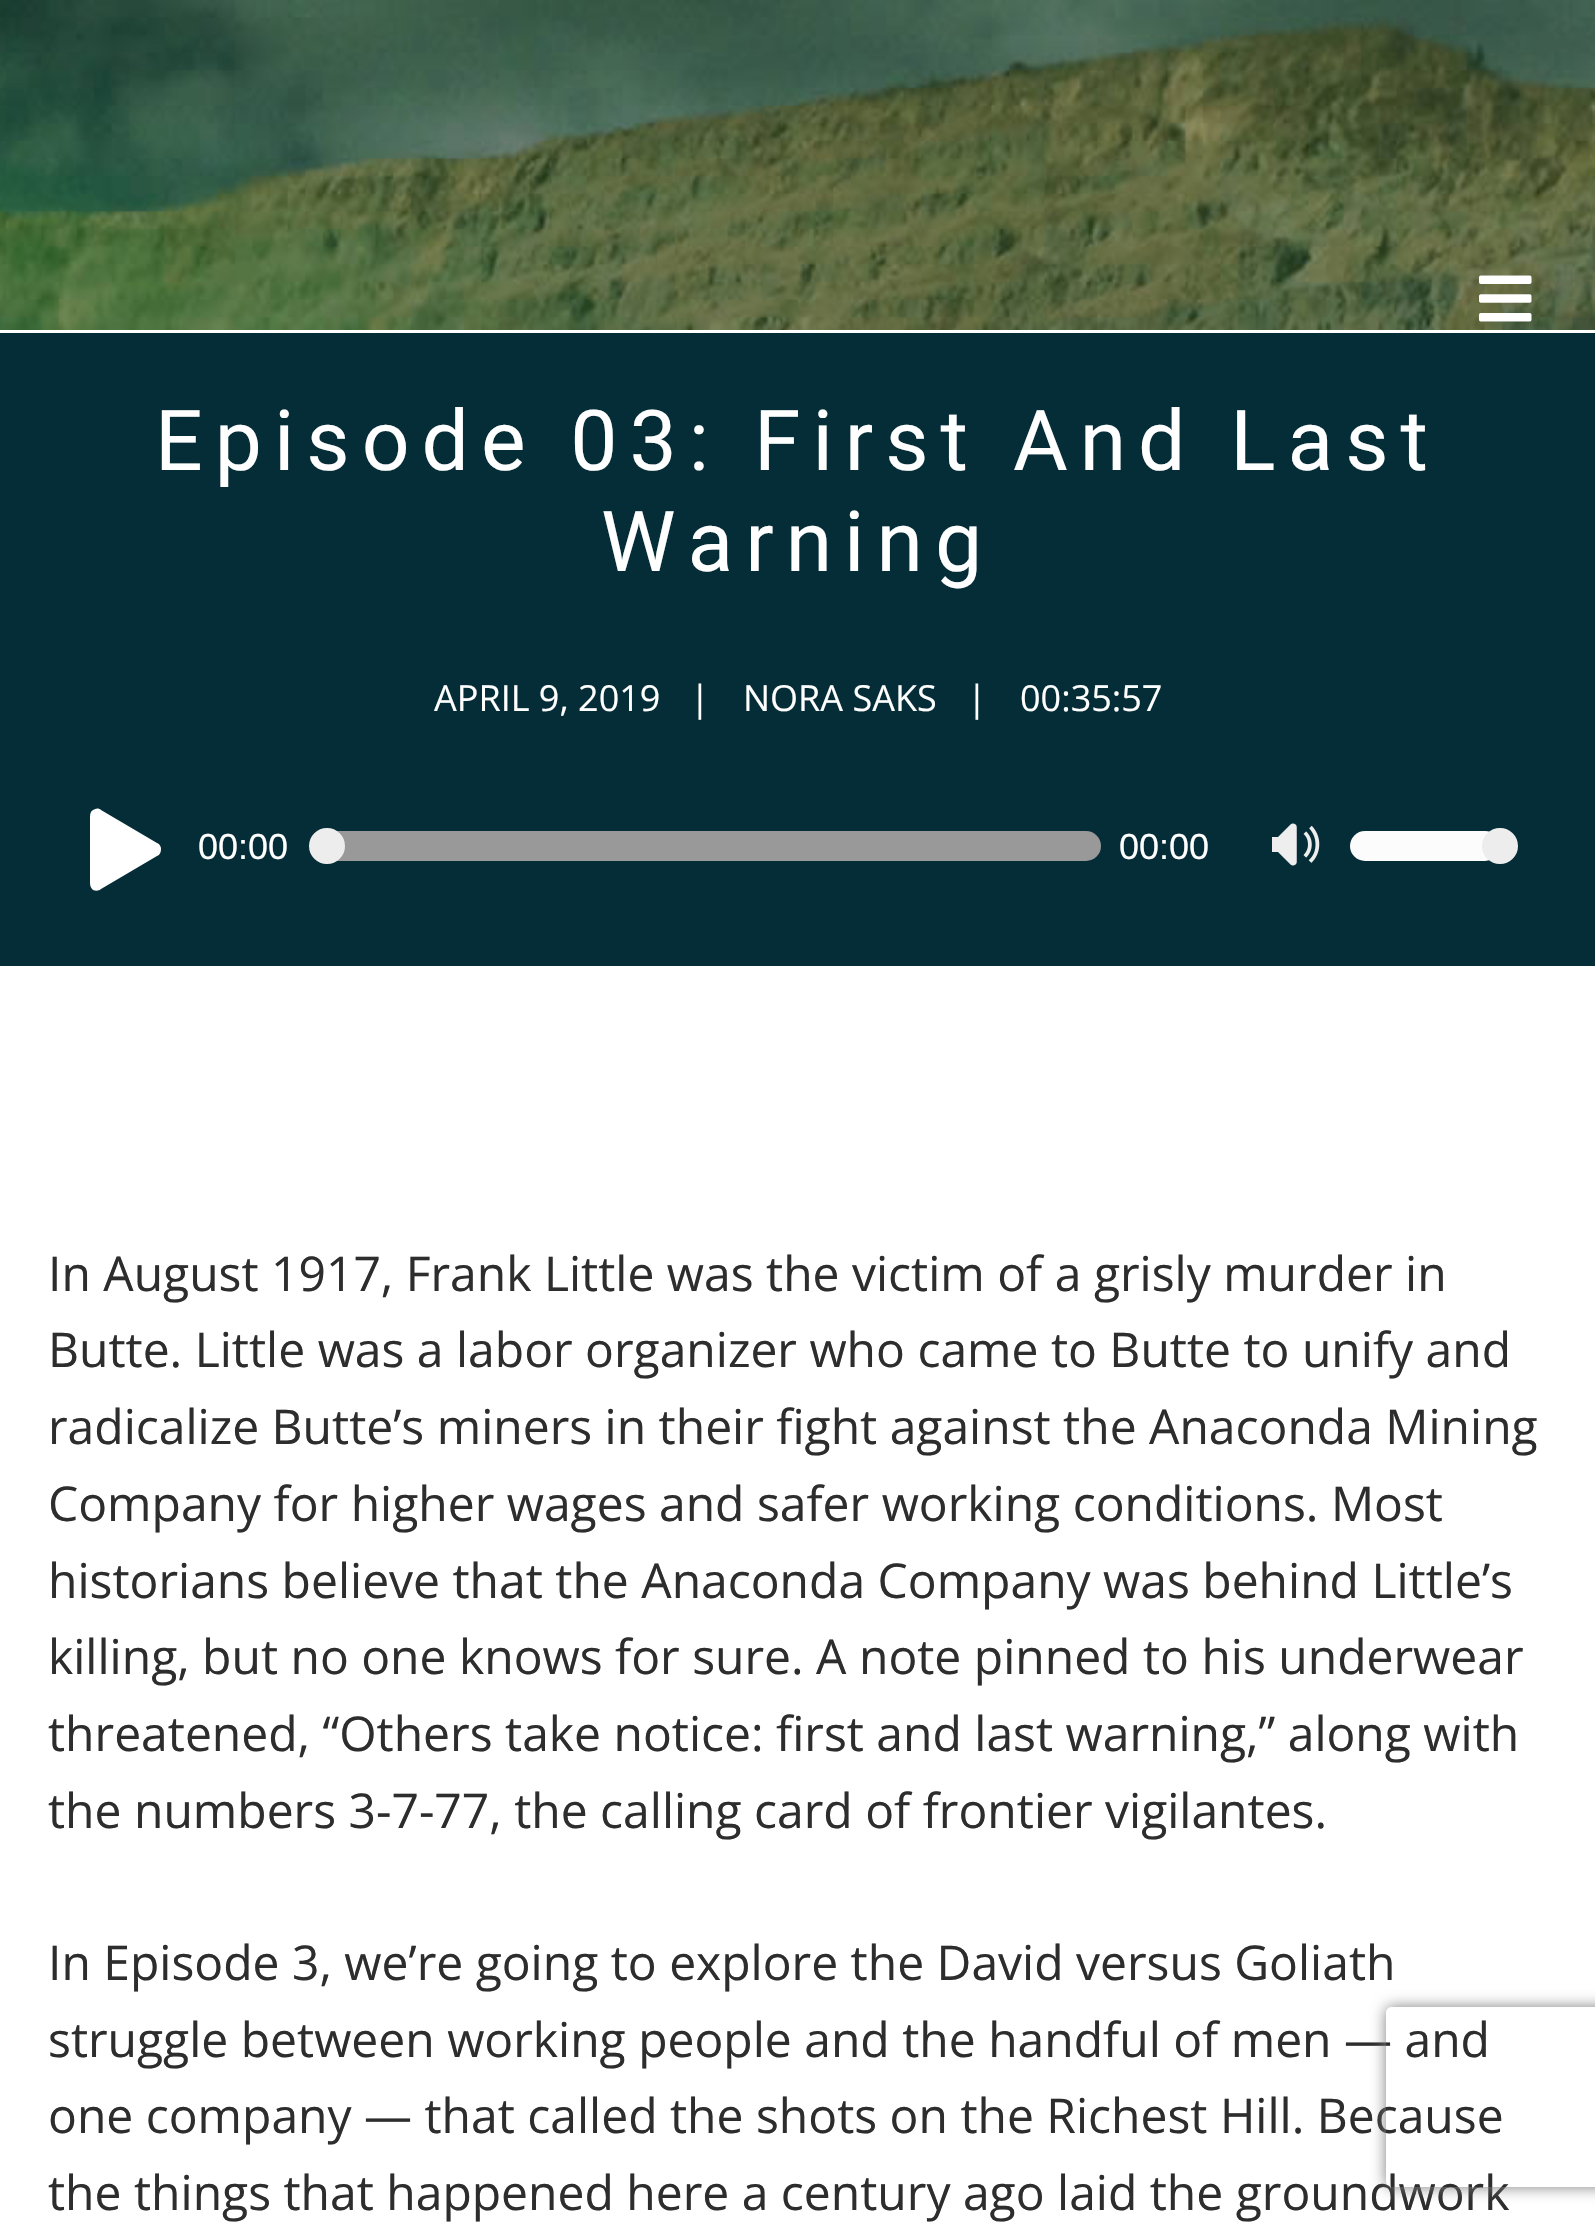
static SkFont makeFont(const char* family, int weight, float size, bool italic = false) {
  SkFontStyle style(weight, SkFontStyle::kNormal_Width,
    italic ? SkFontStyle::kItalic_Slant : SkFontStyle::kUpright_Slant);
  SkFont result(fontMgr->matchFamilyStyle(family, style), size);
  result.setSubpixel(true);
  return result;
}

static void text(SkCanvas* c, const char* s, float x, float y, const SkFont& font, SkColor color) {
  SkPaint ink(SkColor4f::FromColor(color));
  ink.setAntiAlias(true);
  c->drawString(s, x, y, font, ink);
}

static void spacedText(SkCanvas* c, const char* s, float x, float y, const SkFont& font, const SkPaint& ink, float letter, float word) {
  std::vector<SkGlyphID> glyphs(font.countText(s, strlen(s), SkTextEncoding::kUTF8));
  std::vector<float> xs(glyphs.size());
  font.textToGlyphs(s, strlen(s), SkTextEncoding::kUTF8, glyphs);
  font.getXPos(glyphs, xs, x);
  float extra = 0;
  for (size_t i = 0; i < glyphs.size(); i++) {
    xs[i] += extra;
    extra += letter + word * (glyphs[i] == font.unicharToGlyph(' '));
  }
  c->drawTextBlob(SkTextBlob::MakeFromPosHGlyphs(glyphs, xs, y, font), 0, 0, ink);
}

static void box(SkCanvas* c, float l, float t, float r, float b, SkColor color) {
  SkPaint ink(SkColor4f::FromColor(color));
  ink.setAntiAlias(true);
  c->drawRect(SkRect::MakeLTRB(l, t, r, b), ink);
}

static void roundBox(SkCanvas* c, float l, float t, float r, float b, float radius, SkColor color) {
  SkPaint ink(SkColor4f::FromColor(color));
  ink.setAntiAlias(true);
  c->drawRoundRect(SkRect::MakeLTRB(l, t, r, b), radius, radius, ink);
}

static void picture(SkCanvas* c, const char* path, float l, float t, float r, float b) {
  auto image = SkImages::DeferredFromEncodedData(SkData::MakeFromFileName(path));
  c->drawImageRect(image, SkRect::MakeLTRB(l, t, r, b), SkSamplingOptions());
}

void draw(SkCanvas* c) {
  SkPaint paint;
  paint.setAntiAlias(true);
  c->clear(0xffffffff);
  picture(c, "img_01.png", 0, 0, 1595, 330);
  picture(c, "img_02.png", 1479, 275, 1532, 322);
  box(c, 0, 333, 1595, 966, 0xff052d37);
  SkFont face1 = makeFont("Roboto", 400, 84);
  paint.setColor(0xffffffff);
  spacedText(c, "Episode 03: First And Last", 155, 470, face1, paint, 12, 0);
  spacedText(c, "Warning", 601, 571, face1, paint, 12, 0);
  SkFont face2 = makeFont("Open Sans", 400, 36);
  text(c, "APRIL 9, 2019", 434, 711, face2, 0xffffffff);
  text(c, "|", 690, 711, face2, 0xffffffff);
  text(c, "NORA SAKS", 743, 711, face2, 0xffffffff);
  text(c, "|", 967, 711, face2, 0xffffffff);
  text(c, "00:35:57", 1020, 711, face2, 0xffffffff);
  c->drawPath(SkPathBuilder().moveTo(90, 883).lineTo(90, 817).cubicTo(90, 813, 91, 811, 93, 810).cubicTo(96, 808, 99, 808, 101, 810).lineTo(157, 843).cubicTo(160, 844, 161, 847, 161, 849).cubicTo(161, 852, 160, 855, 157, 856).lineTo(101, 889).cubicTo(99, 891, 96, 891, 93, 890).cubicTo(91, 888, 90, 886, 90, 883).close().detach(), paint);
  SkFont face3 = makeFont("Liberation Sans", 400, 36);
  text(c, "00:00", 198, 859, face3, 0xffffffff);
  roundBox(c, 321, 831, 1101, 861, 15, 0xff999999);
  paint.setColor(0xffededed);
  c->drawCircle(327, 846, 16.5f, paint);
  paint.setStyle(SkPaint::kStroke_Style);
  paint.setStrokeWidth(3);
  c->drawCircle(327, 846, 16.5f, paint);
  text(c, "00:00", 1119, 859, face3, 0xffffffff);
  picture(c, "img_03.png", 1272, 823, 1320, 866);
  roundBox(c, 1350, 831, 1500, 861, 15, 0xfffcfcfc);
  paint.setStyle(SkPaint::kFill_Style);
  c->drawCircle(1500, 846, 16.5f, paint);
  paint.setStyle(SkPaint::kStroke_Style);
  c->drawCircle(1500, 846, 16.5f, paint);
  SkFont face4 = makeFont("Open Sans", 400, 48);
  text(c, "In August 1917, Frank Little was the victim of a grisly murder in", 48, 1291, face4, 0xff2d2d2d);
  text(c, "Butte. Little was a labor organizer who came to Butte to unify and", 48, 1367, face4, 0xff2d2d2d);
  text(c, "radicalize Butte’s miners in their fight against the Anaconda Mining", 48, 1444, face4, 0xff2d2d2d);
  text(c, "Company for higher wages and safer working conditions. Most", 48, 1521, face4, 0xff2d2d2d);
  text(c, "historians believe that the Anaconda Company was behind Little’s", 48, 1598, face4, 0xff2d2d2d);
  text(c, "killing, but no one knows for sure. A note pinned to his underwear", 48, 1674, face4, 0xff2d2d2d);
  text(c, "threatened, “Others take notice: first and last warning,” along with", 48, 1751, face4, 0xff2d2d2d);
  text(c, "the numbers 3-7-77, the calling card of frontier vigilantes.", 48, 1828, face4, 0xff2d2d2d);
  text(c, "In Episode 3, we’re going to explore the David versus Goliath", 48, 1980, face4, 0xff2d2d2d);
  text(c, "struggle between working people and the handful of men — and", 48, 2057, face4, 0xff2d2d2d);
  text(c, "one company — that called the shots on the Richest Hill. Because", 48, 2133, face4, 0xff2d2d2d);
  text(c, "the things that happened here a century ago laid the groundwork", 48, 2210, face4, 0xff2d2d2d);
  c->save();
  c->clipPath(SkPathBuilder(SkPathFillType::kEvenOdd).moveTo(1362, 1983).lineTo(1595, 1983).lineTo(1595, 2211).lineTo(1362, 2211).close().moveTo(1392, 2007).lineTo(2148, 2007).cubicTo(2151.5f, 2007, 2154, 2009.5f, 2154, 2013).lineTo(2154, 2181).cubicTo(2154, 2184.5f, 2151.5f, 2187, 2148, 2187).lineTo(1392, 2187).cubicTo(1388.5f, 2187, 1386, 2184.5f, 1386, 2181).lineTo(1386, 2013).cubicTo(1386, 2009.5f, 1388.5f, 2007, 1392, 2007).close().detach(), true);
  paint.setStyle(SkPaint::kFill_Style);
  paint.setColor(0xff808080);
  paint.setMaskFilter(SkMaskFilter::MakeBlur(kNormal_SkBlurStyle, 7.5f));
  c->drawRoundRect(SkRect::MakeLTRB(1386, 2007, 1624, 2187), 6, 6, paint);
  paint.setMaskFilter(nullptr);
  c->restore();
}
